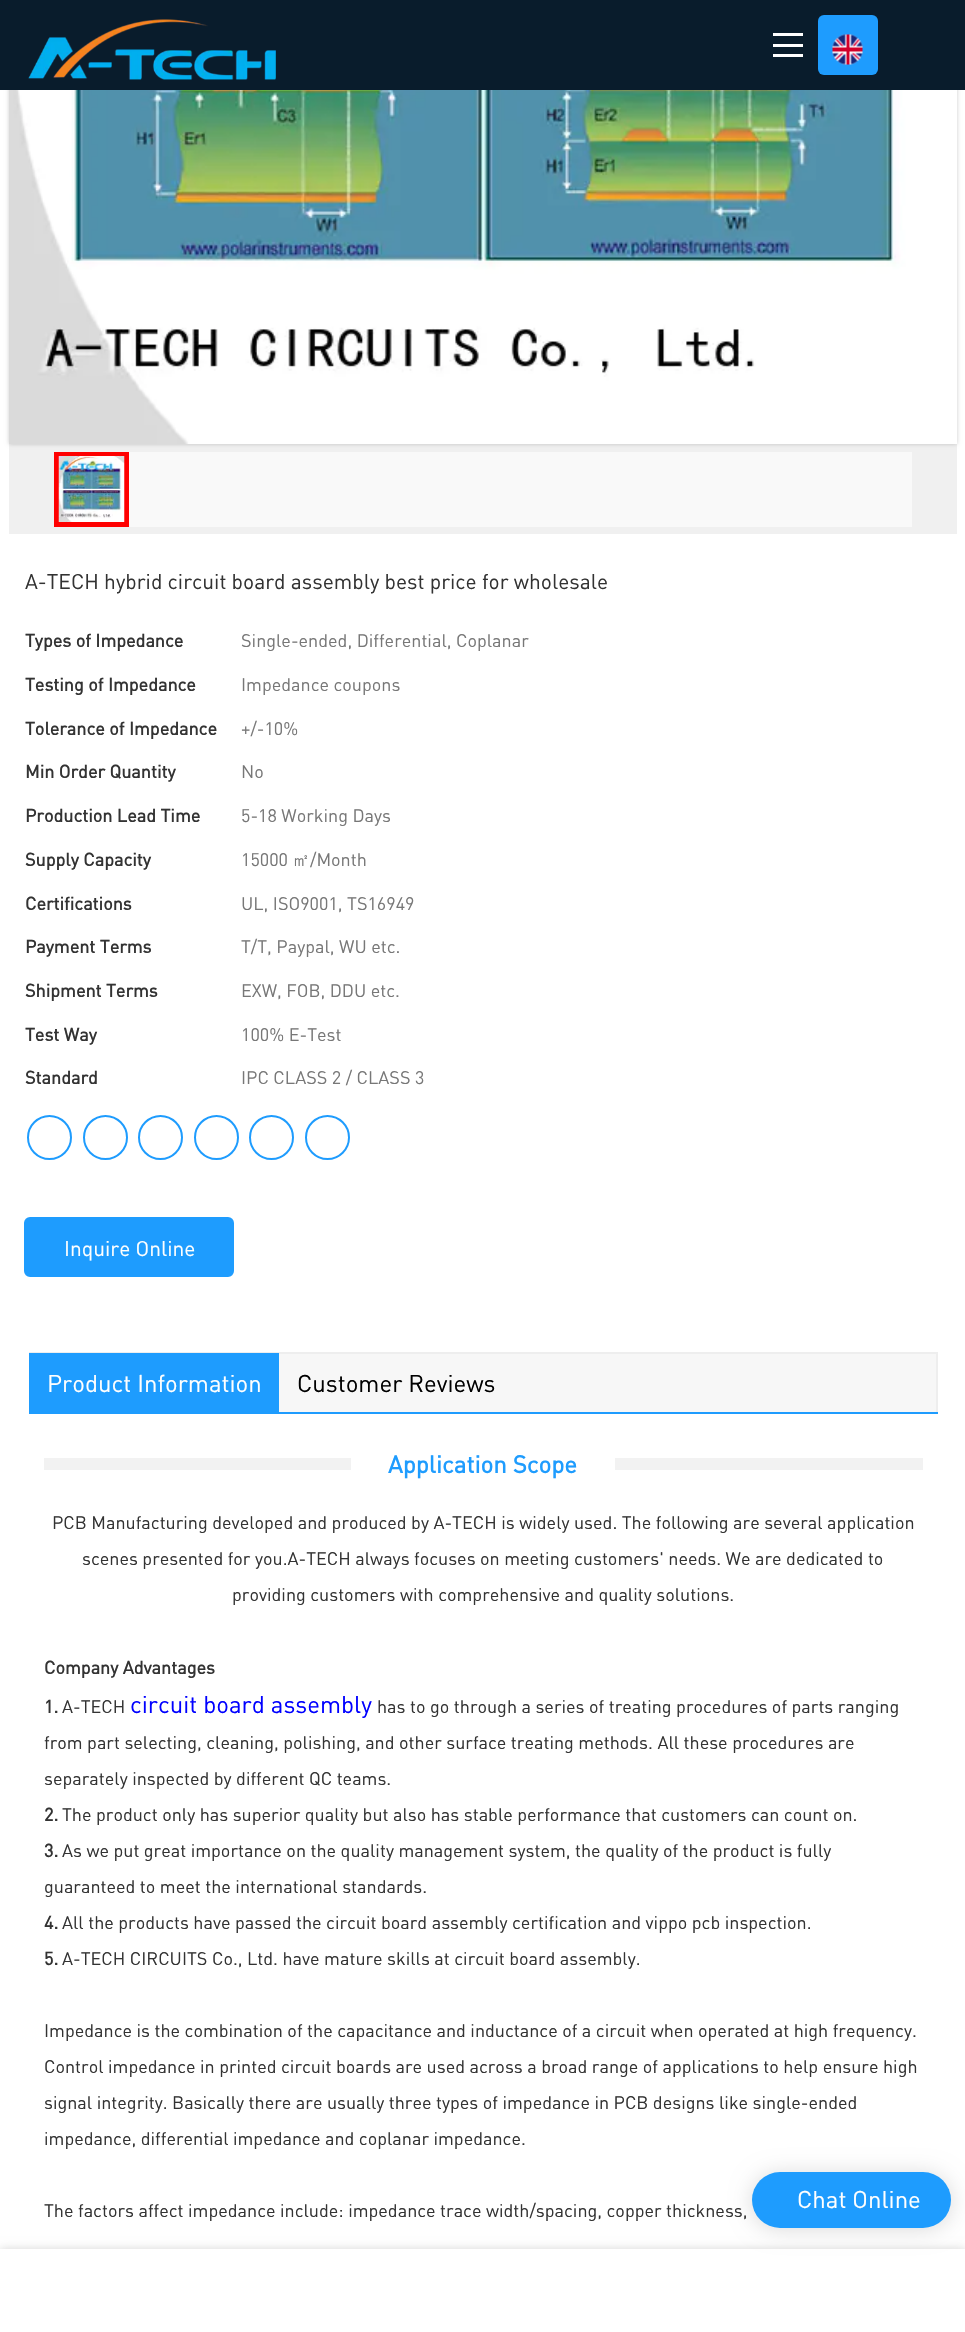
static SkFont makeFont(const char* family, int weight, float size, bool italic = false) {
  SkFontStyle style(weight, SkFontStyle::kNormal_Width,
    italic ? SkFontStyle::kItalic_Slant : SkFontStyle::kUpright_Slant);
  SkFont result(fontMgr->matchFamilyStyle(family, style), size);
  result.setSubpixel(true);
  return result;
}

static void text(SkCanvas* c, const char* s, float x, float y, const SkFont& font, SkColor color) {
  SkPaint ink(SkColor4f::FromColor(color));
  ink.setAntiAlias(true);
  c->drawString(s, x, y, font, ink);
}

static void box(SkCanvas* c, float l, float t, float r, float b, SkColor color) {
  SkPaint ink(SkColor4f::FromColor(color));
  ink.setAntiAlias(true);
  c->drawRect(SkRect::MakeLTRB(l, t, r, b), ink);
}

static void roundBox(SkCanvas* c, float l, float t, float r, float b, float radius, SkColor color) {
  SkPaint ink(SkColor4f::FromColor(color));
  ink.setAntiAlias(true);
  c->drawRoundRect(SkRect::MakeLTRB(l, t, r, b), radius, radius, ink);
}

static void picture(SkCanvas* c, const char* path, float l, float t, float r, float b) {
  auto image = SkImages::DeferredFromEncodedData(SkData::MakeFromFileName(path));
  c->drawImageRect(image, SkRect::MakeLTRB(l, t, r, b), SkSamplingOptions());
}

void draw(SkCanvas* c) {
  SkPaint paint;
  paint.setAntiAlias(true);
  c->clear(0xffffffff);
  paint.setColor(0x33000000);
  paint.setMaskFilter(SkMaskFilter::MakeBlur(kNormal_SkBlurStyle, 2));
  c->drawRect(SkRect::MakeLTRB(9, -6, 957, 444), paint);
  paint.setMaskFilter(nullptr);
  box(c, 0, 0, 965, 90, 0xff091c2c);
  picture(c, "img_01.png", 28, 19, 276, 80);
  box(c, 773, 33, 803, 36, 0xffffffff);
  box(c, 773, 44, 803, 47, 0xffffffff);
  box(c, 773, 54, 803, 57, 0xffffffff);
  roundBox(c, 818, 15, 878, 75, 6, 0xff1e9cfe);
  picture(c, "img_02.png", 832, 34, 863, 65);
  picture(c, "img_03.png", 9, 90, 957, 444);
  box(c, 9, 444, 957, 534, 0x0f000000);
  box(c, 129, 452, 912, 527, 0xfff9f9f9);
  paint.setStyle(SkPaint::kStroke_Style);
  paint.setStrokeWidth(5);
  paint.setColor(0xffff0000);
  c->drawRect(SkRect::MakeLTRB(56.5f, 454.5f, 126.5f, 524.5f), paint);
  picture(c, "img_04.png", 58, 456, 125, 522);
  SkFont face1 = makeFont("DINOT", 400, 21);
  text(c, "A-TECH hybrid circuit board assembly best price for wholesale", 25, 589, face1, 0xff333333);
  SkFont face2 = makeFont("DINOT", 700, 18);
  text(c, "Types of Impedance", 25, 647, face2, 0xff333333);
  SkFont face3 = makeFont("DINOT", 400, 18);
  text(c, "Single-ended, Differential, Coplanar", 241, 647, face3, 0xff777777);
  text(c, "Testing of Impedance", 25, 691, face2, 0xff333333);
  text(c, "Impedance coupons", 241, 691, face3, 0xff777777);
  text(c, "Tolerance of Impedance", 25, 735, face2, 0xff333333);
  text(c, "+/-10%", 241, 735, face3, 0xff777777);
  text(c, "Min Order Quantity", 25, 778, face2, 0xff333333);
  text(c, "No", 241, 778, face3, 0xff777777);
  text(c, "Production Lead Time", 25, 822, face2, 0xff333333);
  text(c, "5-18 Working Days", 241, 822, face3, 0xff777777);
  text(c, "Supply Capacity", 25, 866, face2, 0xff333333);
  text(c, "15000", 241, 866, face3, 0xff777777);
  SkFont face4 = makeFont("WenQuanYi Zen Hei", 500, 18);
  text(c, "㎡", 292, 866, face4, 0xff777777);
  text(c, "/Month", 310, 866, face3, 0xff777777);
  text(c, "Certifications", 25, 910, face2, 0xff333333);
  text(c, "UL, ISO9001, TS16949", 241, 910, face3, 0xff777777);
  text(c, "Payment Terms", 25, 953, face2, 0xff333333);
  text(c, "T/T, Paypal, WU etc.", 241, 953, face3, 0xff777777);
  text(c, "Shipment Terms", 25, 997, face2, 0xff333333);
  text(c, "EXW, FOB, DDU etc.", 241, 997, face3, 0xff777777);
  text(c, "Test Way", 25, 1041, face2, 0xff333333);
  text(c, "100% E-Test", 241, 1041, face3, 0xff777777);
  text(c, "Standard", 25, 1084, face2, 0xff333333);
  text(c, "IPC CLASS 2 / CLASS 3", 241, 1084, face3, 0xff777777);
  paint.setStrokeWidth(2);
  paint.setColor(0xff1e9cfe);
  c->drawCircle(49.5f, 1137.5f, 21.5f, paint);
  c->drawCircle(105.5f, 1137.5f, 21.5f, paint);
  c->drawCircle(160.5f, 1137.5f, 21.5f, paint);
  c->drawCircle(216.5f, 1137.5f, 21.5f, paint);
  c->drawCircle(271.5f, 1137.5f, 21.5f, paint);
  c->drawCircle(327.5f, 1137.5f, 21.5f, paint);
  paint.setStyle(SkPaint::kFill_Style);
  c->drawRoundRect(SkRect::MakeLTRB(25, 1218, 233, 1276), 5, 5, paint);
  paint.setStyle(SkPaint::kStroke_Style);
  c->drawRoundRect(SkRect::MakeLTRB(25, 1218, 233, 1276), 5, 5, paint);
  text(c, "Inquire Online", 64, 1256, face1, 0xffffffff);
  box(c, 279, 1354, 936, 1412, 0xfff7f7f7);
  box(c, 29, 1352, 938, 1354, 0xffeeeeee);
  box(c, 936, 1352, 938, 1413, 0xffeeeeee);
  box(c, 29, 1412, 938, 1414, 0xff1e9cfe);
  box(c, 29, 1353, 279, 1412, 0xff1e9cfe);
  SkFont face5 = makeFont("DINOT", 400, 24);
  text(c, "Product Information", 47, 1392, face5, 0xffffffff);
  text(c, "Customer Reviews", 297, 1392, face5, 0xff000000);
  box(c, 44, 1458, 351, 1470, 0xfff2f2f2);
  SkFont face6 = makeFont("DINOT", 700, 24);
  text(c, "Application Scope", 388, 1473, face6, 0xff1e9cfe);
  box(c, 615, 1458, 923, 1470, 0xfff2f2f2);
  text(c, "PCB Manufacturing developed and produced by A-TECH is widely used. The following are several application", 52, 1529, face3, 0xff333333);
  text(c, "scenes presented for you.A-TECH always focuses on meeting customers' needs. We are dedicated to", 82, 1565, face3, 0xff333333);
  text(c, "providing customers with comprehensive and quality solutions.", 232, 1601, face3, 0xff333333);
  text(c, "Company Advantages", 44, 1674, face2, 0xff333333);
  text(c, "1.", 44, 1713, face2, 0xff333333);
  text(c, "A-TECH", 62, 1713, face3, 0xff333333);
  text(c, "circuit board assembly", 130, 1713, face5, 0xff0000ff);
  text(c, "has to go through a series of treating procedures of parts ranging", 377, 1713, face3, 0xff333333);
  text(c, "from part selecting, cleaning, polishing, and other surface treating methods. All these procedures are", 44, 1749, face3, 0xff333333);
  text(c, "separately inspected by different QC teams.", 44, 1785, face3, 0xff333333);
  text(c, "2.", 44, 1821, face2, 0xff333333);
  text(c, "The product only has superior quality but also has stable performance that customers can count on.", 62, 1821, face3, 0xff333333);
  text(c, "3.", 44, 1857, face2, 0xff333333);
  text(c, "As we put great importance on the quality management system, the quality of the product is fully", 62, 1857, face3, 0xff333333);
  text(c, "guaranteed to meet the international standards.", 44, 1893, face3, 0xff333333);
  text(c, "4.", 44, 1929, face2, 0xff333333);
  text(c, "All the products have passed the circuit board assembly certification and vippo pcb inspection.", 62, 1929, face3, 0xff333333);
  text(c, "5.", 44, 1965, face2, 0xff333333);
  text(c, "A-TECH CIRCUITS Co., Ltd. have mature skills at circuit board assembly.", 62, 1965, face3, 0xff333333);
  text(c, "Impedance is the combination of the capacitance and inductance of a circuit when operated at high frequency.", 44, 2037, face3, 0xff333333);
  text(c, "Control impedance in printed circuit boards are used across a broad range of applications to help ensure high", 44, 2073, face3, 0xff333333);
  text(c, "signal integrity. Basically there are usually three types of impedance in PCB designs like single-ended", 44, 2109, face3, 0xff333333);
  text(c, "impedance, differential impedance and coplanar impedance.", 44, 2145, face3, 0xff333333);
  text(c, "The factors affect impedance include: impedance trace width/spacing, copper thickness,", 44, 2217, face3, 0xff333333);
  paint.setStyle(SkPaint::kFill_Style);
  paint.setColor(0x29000000);
  paint.setMaskFilter(SkMaskFilter::MakeBlur(kNormal_SkBlurStyle, 4.5f));
  c->drawRect(SkRect::MakeLTRB(0, 2249, 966, 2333), paint);
  paint.setMaskFilter(nullptr);
  box(c, 0, 2249, 965, 2332, 0xffffffff);
  paint.setColor(0x26000000);
  paint.setMaskFilter(SkMaskFilter::MakeBlur(kNormal_SkBlurStyle, 11));
  c->drawRoundRect(SkRect::MakeLTRB(752, 2174, 951, 2229), 27.5f, 27.5f, paint);
  paint.setMaskFilter(nullptr);
  roundBox(c, 752, 2172, 951, 2228, 28, 0xff1e9cfe);
  text(c, "Chat Online", 797, 2208, face5, 0xffffffff);
}
